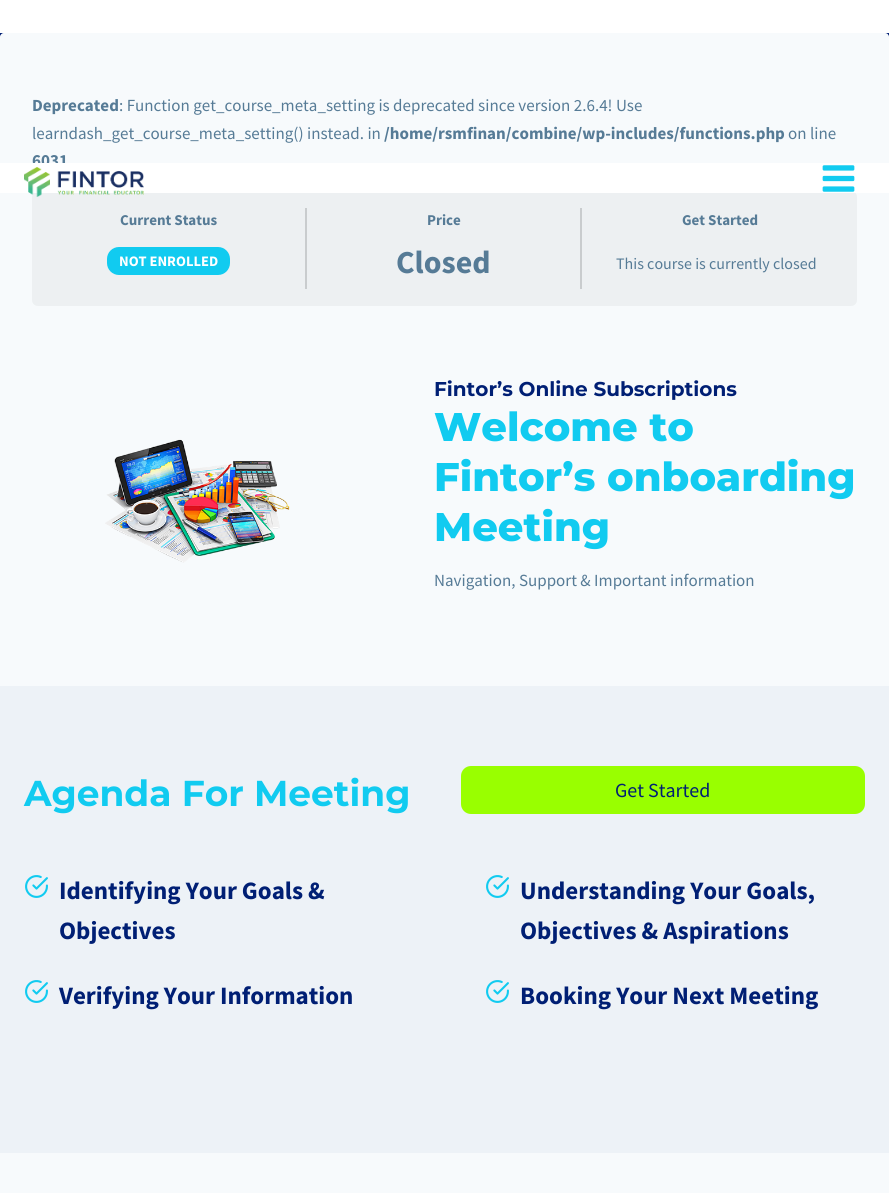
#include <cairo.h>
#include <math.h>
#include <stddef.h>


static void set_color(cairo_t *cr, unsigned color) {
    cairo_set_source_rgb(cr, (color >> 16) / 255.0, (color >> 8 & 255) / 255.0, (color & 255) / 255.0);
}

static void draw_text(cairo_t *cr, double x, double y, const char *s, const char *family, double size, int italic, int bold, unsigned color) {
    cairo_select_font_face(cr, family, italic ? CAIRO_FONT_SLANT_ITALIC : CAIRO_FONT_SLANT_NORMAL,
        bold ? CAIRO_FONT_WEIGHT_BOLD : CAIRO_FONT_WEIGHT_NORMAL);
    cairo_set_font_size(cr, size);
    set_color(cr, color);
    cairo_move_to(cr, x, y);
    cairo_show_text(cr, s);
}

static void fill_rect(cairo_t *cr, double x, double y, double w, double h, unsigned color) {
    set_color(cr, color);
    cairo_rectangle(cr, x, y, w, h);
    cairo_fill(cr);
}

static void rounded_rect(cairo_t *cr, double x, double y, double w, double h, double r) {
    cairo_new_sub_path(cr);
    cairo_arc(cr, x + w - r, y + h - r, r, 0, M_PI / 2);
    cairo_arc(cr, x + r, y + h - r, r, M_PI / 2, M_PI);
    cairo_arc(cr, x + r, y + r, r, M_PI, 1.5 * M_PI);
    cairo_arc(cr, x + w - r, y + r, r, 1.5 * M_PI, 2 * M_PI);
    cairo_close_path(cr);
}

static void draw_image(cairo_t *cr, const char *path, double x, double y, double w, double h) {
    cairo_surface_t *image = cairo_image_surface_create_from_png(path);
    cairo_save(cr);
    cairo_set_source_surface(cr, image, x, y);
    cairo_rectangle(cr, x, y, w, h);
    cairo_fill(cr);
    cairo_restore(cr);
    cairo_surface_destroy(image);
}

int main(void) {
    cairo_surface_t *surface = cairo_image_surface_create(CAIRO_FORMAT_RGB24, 889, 1193);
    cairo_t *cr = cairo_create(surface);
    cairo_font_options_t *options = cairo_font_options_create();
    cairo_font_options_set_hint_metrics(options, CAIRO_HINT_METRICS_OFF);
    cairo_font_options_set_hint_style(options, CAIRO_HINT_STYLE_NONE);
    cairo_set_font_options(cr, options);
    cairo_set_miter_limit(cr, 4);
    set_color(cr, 0x001F74);
    cairo_paint(cr);
    fill_rect(cr, 0, 0, 889, 33, 0xFFFFFF);
    set_color(cr, 0xF7FAFC);
    rounded_rect(cr, 0, 33, 889, 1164, 4);
    cairo_fill(cr);
    draw_text(cr, 32, 166, "6031", "Source Sans Pro", 17, 0, 1, 0x567B96);
    set_color(cr, 0xEDF0F2);
    rounded_rect(cr, 32, 191, 825, 115, 6);
    cairo_fill(cr);
    fill_rect(cr, 0, 163, 889, 30, 0xFFFFFF);
    draw_image(cr, "assets/img1.png", 24, 167, 120, 30);
    draw_image(cr, "assets/img2.png", 822, 165, 33, 27);
    draw_text(cr, 32, 111, "Deprecated", "Source Sans Pro", 17, 0, 1, 0x567B96);
    draw_text(cr, 119, 111, ": Function get_course_meta_setting is deprecated since version 2.6.4! Use", "Source Sans Pro", 17, 0, 0, 0x567B96);
    draw_text(cr, 32, 139, "learndash_get_course_meta_setting() instead. in", "Source Sans Pro", 17, 0, 0, 0x567B96);
    draw_text(cr, 384, 139, "/home/rsmfinan/combine/wp-includes/functions.php", "Source Sans Pro", 17, 0, 1, 0x567B96);
    draw_text(cr, 788, 139, "on line", "Source Sans Pro", 17, 0, 0, 0x567B96);
    fill_rect(cr, 305, 208, 2, 81, 0xC9CCCE);
    draw_text(cr, 120, 225, "Current Status", "Source Sans Pro", 15, 0, 1, 0x567B96);
    set_color(cr, 0x11CBF0);
    rounded_rect(cr, 107, 247, 123, 28, 12);
    cairo_fill(cr);
    draw_text(cr, 119, 266, "NOT ENROLLED", "Source Sans Pro", 14.5, 0, 1, 0xFFFFFF);
    fill_rect(cr, 580, 208, 2, 81, 0xC9CCCE);
    draw_text(cr, 427, 225, "Price", "Source Sans Pro", 15, 0, 1, 0x567B96);
    draw_text(cr, 396, 273, "Closed", "Source Sans Pro", 32, 0, 1, 0x567B96);
    draw_text(cr, 682, 225, "Get Started", "Source Sans Pro", 15, 0, 1, 0x567B96);
    draw_text(cr, 616, 269, "This course is currently closed", "Source Sans Pro", 16, 0, 0, 0x567B96);
    draw_image(cr, "assets/img3.png", 105, 439, 185, 124);
    draw_text(cr, 434, 396, "Fintor’s Online Subscriptions", "Montserrat", 20, 0, 1, 0x001F74);
    draw_text(cr, 434, 441, "Welcome to", "Montserrat ExtraBold", 40, 0, 0, 0x11CBF0);
    draw_text(cr, 434, 491, "Fintor’s onboarding", "Montserrat ExtraBold", 40, 0, 0, 0x11CBF0);
    draw_text(cr, 434, 541, "Meeting", "Montserrat ExtraBold", 40, 0, 0, 0x11CBF0);
    draw_text(cr, 434, 586, "Navigation, Support & Important information", "Source Sans Pro", 17, 0, 0, 0x567B96);
    fill_rect(cr, 0, 686, 889, 467, 0xEDF2F7);
    draw_text(cr, 24, 806, "Agenda For Meeting", "Montserrat", 36, 0, 1, 0x11CBF0);
    set_color(cr, 0x99FF00);
    rounded_rect(cr, 461, 766, 404, 48, 10);
    cairo_fill(cr);
    draw_text(cr, 615, 797, "Get Started", "Source Sans Pro", 20, 0, 0, 0x001F74);
    draw_image(cr, "assets/img4.png", 25, 875, 23, 23);
    draw_text(cr, 59, 899, "Identifying Your Goals &", "Source Sans Pro", 25, 0, 1, 0x001F74);
    draw_text(cr, 59, 939, "Objectives", "Source Sans Pro", 25, 0, 1, 0x001F74);
    draw_image(cr, "assets/img4.png", 25, 980, 23, 23);
    draw_text(cr, 59, 1004, "Verifying Your Information", "Source Sans Pro", 25, 0, 1, 0x001F74);
    draw_image(cr, "assets/img4.png", 486, 875, 23, 23);
    draw_text(cr, 520, 899, "Understanding Your Goals,", "Source Sans Pro", 25, 0, 1, 0x001F74);
    draw_text(cr, 520, 939, "Objectives & Aspirations", "Source Sans Pro", 25, 0, 1, 0x001F74);
    draw_image(cr, "assets/img4.png", 486, 980, 23, 23);
    draw_text(cr, 520, 1004, "Booking Your Next Meeting", "Source Sans Pro", 25, 0, 1, 0x001F74);
    cairo_surface_write_to_png(surface, "output.png");
    cairo_font_options_destroy(options);
    cairo_destroy(cr);
    cairo_surface_destroy(surface);
    return 0;
}
